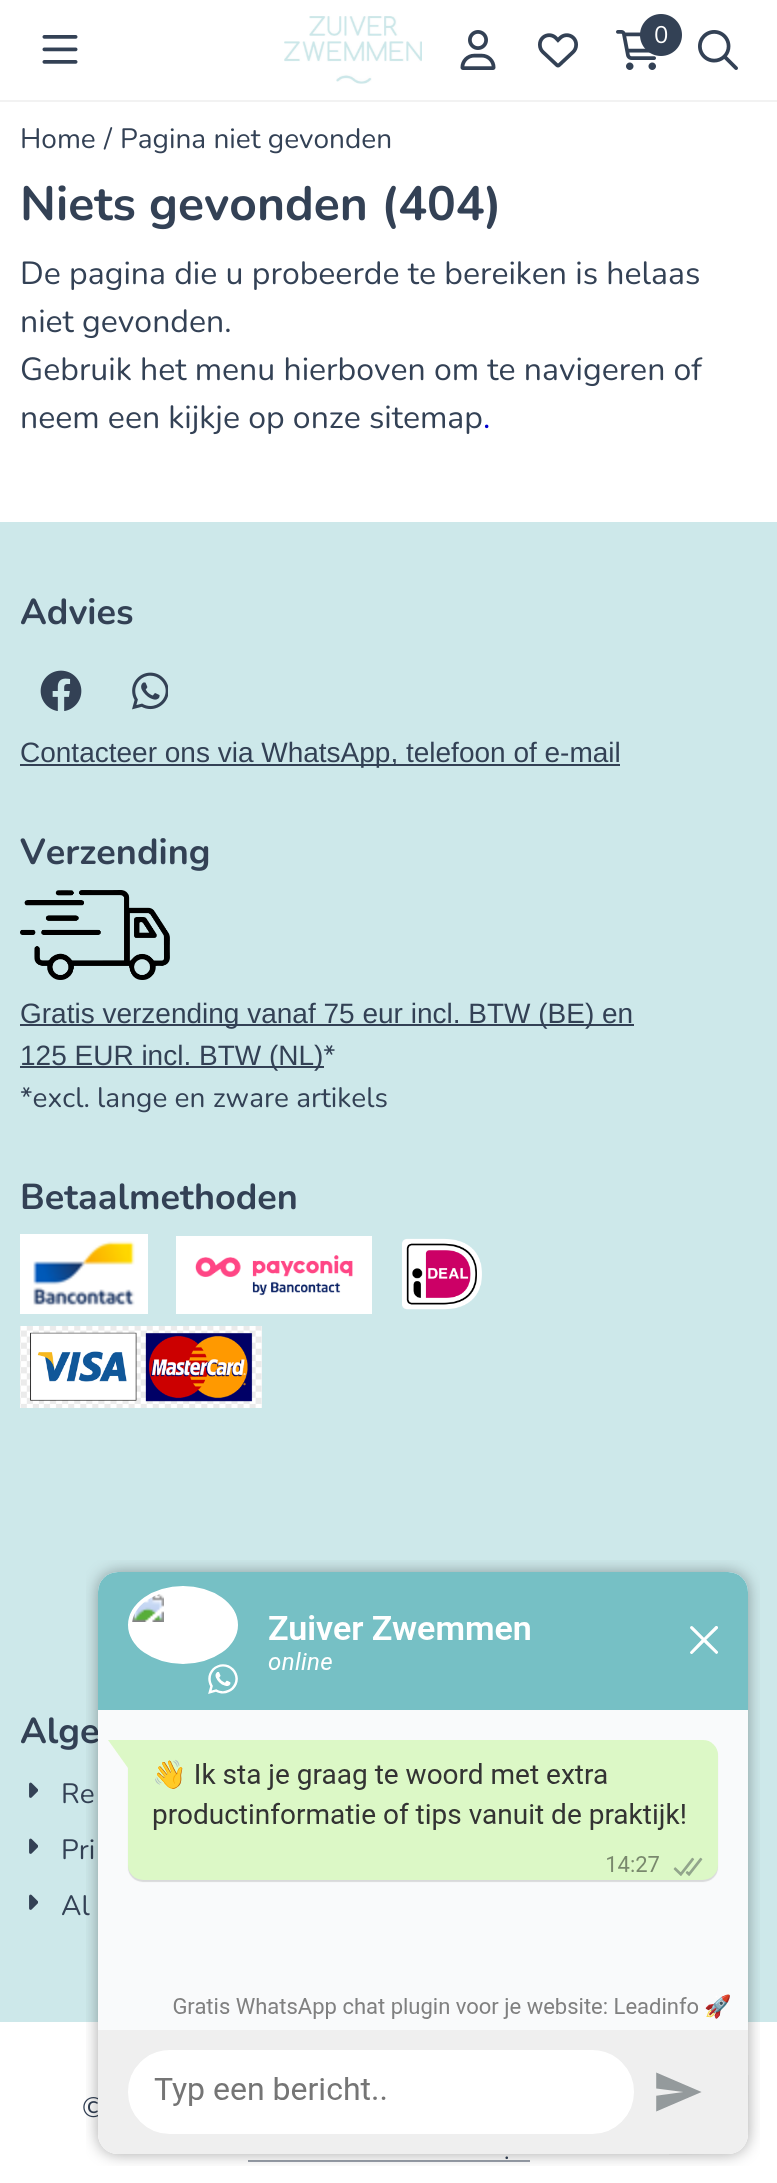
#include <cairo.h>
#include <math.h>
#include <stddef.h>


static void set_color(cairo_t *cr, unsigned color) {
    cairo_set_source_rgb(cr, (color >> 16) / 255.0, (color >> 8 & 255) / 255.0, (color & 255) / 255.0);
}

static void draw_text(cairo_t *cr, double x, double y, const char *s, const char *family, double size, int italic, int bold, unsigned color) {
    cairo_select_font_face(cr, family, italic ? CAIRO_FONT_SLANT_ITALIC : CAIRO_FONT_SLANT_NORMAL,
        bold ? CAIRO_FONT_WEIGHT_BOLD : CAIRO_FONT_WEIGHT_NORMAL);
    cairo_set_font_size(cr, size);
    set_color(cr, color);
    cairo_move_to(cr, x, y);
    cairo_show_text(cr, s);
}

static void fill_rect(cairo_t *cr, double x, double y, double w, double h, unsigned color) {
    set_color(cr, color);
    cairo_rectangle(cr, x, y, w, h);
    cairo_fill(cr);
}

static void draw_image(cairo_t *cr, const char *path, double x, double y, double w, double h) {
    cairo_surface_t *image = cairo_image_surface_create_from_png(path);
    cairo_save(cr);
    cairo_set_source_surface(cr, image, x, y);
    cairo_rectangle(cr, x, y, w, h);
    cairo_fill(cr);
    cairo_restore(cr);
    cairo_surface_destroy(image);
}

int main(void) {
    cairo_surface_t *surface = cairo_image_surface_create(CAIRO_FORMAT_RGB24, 777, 2183);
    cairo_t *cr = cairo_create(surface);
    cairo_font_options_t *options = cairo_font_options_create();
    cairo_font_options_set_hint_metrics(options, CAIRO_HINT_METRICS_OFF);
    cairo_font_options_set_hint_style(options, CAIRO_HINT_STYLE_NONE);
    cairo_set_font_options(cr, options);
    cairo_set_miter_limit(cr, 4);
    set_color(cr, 0xFFFFFF);
    cairo_paint(cr);
    fill_rect(cr, 0, 100, 777, 2, 0xF2F2F2);
    draw_image(cr, "assets/img1.png", 42, 35, 36, 29);
    draw_image(cr, "assets/img2.png", 284, 16, 138, 68);
    draw_image(cr, "assets/img3.png", 460, 30, 36, 40);
    draw_image(cr, "assets/img4.png", 538, 33, 40, 35);
    draw_image(cr, "assets/img5.png", 616, 30, 40, 40);
    set_color(cr, 0x334155);
    cairo_arc(cr, 661, 35, 21, 0, 2 * M_PI);
    cairo_fill(cr);
    draw_text(cr, 654, 43, "0", "Nunito ExtraLight", 24, 0, 0, 0xFFFFFF);
    draw_image(cr, "assets/img6.png", 698, 30, 40, 40);
    draw_text(cr, 20, 148, "Home", "Nunito ExtraLight", 28, 0, 0, 0x334155);
    draw_text(cr, 104, 148, "/", "Nunito ExtraLight", 28, 0, 0, 0x334155);
    draw_text(cr, 120, 148, "Pagina niet gevonden", "Nunito ExtraLight", 28, 0, 0, 0x334155);
    draw_text(cr, 20, 220, "Niets gevonden (404)", "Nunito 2 ExtraLight", 48, 0, 0, 0x334155);
    draw_text(cr, 20, 284, "De pagina die u probeerde te bereiken is helaas", "Nunito ExtraLight", 32, 0, 0, 0x334155);
    draw_text(cr, 20, 332, "niet gevonden.", "Nunito ExtraLight", 32, 0, 0, 0x334155);
    draw_text(cr, 20, 380, "Gebruik het menu hierboven om te navigeren of", "Nunito ExtraLight", 32, 0, 0, 0x334155);
    draw_text(cr, 20, 428, "neem een kijkje op onze sitemap", "Nunito ExtraLight", 32, 0, 0, 0x334155);
    draw_text(cr, 483, 428, ".", "Nunito ExtraLight", 32, 0, 0, 0x0000CD);
    fill_rect(cr, 0, 522, 777, 1500, 0xCDE8EA);
    draw_text(cr, 20, 624, "Advies", "Nunito 2 ExtraLight", 36, 0, 0, 0x334155);
    draw_image(cr, "assets/img7.png", 40, 670, 42, 41);
    draw_image(cr, "assets/img8.png", 132, 672, 36, 38);
    fill_rect(cr, 20, 764, 600, 2, 0x334155);
    draw_text(cr, 20, 762, "Contacteer ons via WhatsApp, telefoon of e-mail", "Liberation Sans", 28, 0, 0, 0x334155);
    draw_text(cr, 20, 864, "Verzending", "Nunito 2 ExtraLight", 36, 0, 0, 0x334155);
    draw_image(cr, "assets/img9.png", 20, 890, 150, 90);
    fill_rect(cr, 20, 1024, 614, 2, 0x334155);
    draw_text(cr, 20, 1023, "Gratis verzending vanaf 75 eur incl. BTW (BE) en", "Liberation Sans", 28, 0, 0, 0x334155);
    fill_rect(cr, 20, 1066, 304, 2, 0x334155);
    draw_text(cr, 20, 1065, "125 EUR incl. BTW (NL)", "Liberation Sans", 28, 0, 0, 0x334155);
    draw_text(cr, 323, 1065, "*", "Nunito ExtraLight", 28, 0, 0, 0x334155);
    draw_text(cr, 20, 1107, "*excl. lange en zware artikels", "Nunito ExtraLight", 28, 0, 0, 0x334155);
    draw_text(cr, 20, 1209, "Betaalmethoden", "Nunito 2 ExtraLight", 36, 0, 0, 0x334155);
    draw_image(cr, "assets/img10.png", 20, 1234, 128, 80);
    draw_image(cr, "assets/img11.png", 176, 1236, 196, 78);
    draw_image(cr, "assets/img12.png", 402, 1238, 80, 72);
    draw_image(cr, "assets/img13.png", 20, 1326, 242, 82);
    draw_text(cr, 20, 1743, "Alge", "Nunito 2 ExtraLight", 36, 0, 0, 0x334155);
    draw_image(cr, "assets/img14.png", 29, 1782, 9, 16);
    draw_text(cr, 61, 1803, "Re", "Nunito ExtraLight", 28, 0, 0, 0x334155);
    draw_image(cr, "assets/img14.png", 29, 1838, 9, 16);
    draw_text(cr, 61, 1859, "Pri", "Nunito ExtraLight", 28, 0, 0, 0x334155);
    draw_image(cr, "assets/img14.png", 29, 1894, 9, 16);
    draw_text(cr, 61, 1915, "Al", "Nunito ExtraLight", 28, 0, 0, 0x334155);
    draw_text(cr, 82, 2117, "©", "Nunito ExtraLight", 28, 0, 0, 0x334155);
    draw_text(cr, 504, 2159, ".", "Nunito ExtraLight", 24, 0, 0, 0x334155);
    fill_rect(cr, 248, 2160, 282, 2, 0x99A0AA);
    draw_image(cr, "assets/img16.png", 669, 2075, 80, 80);
    draw_image(cr, "assets/img15.png", 86, 1560, 674, 606);
    cairo_surface_write_to_png(surface, "output.png");
    cairo_font_options_destroy(options);
    cairo_destroy(cr);
    cairo_surface_destroy(surface);
    return 0;
}
